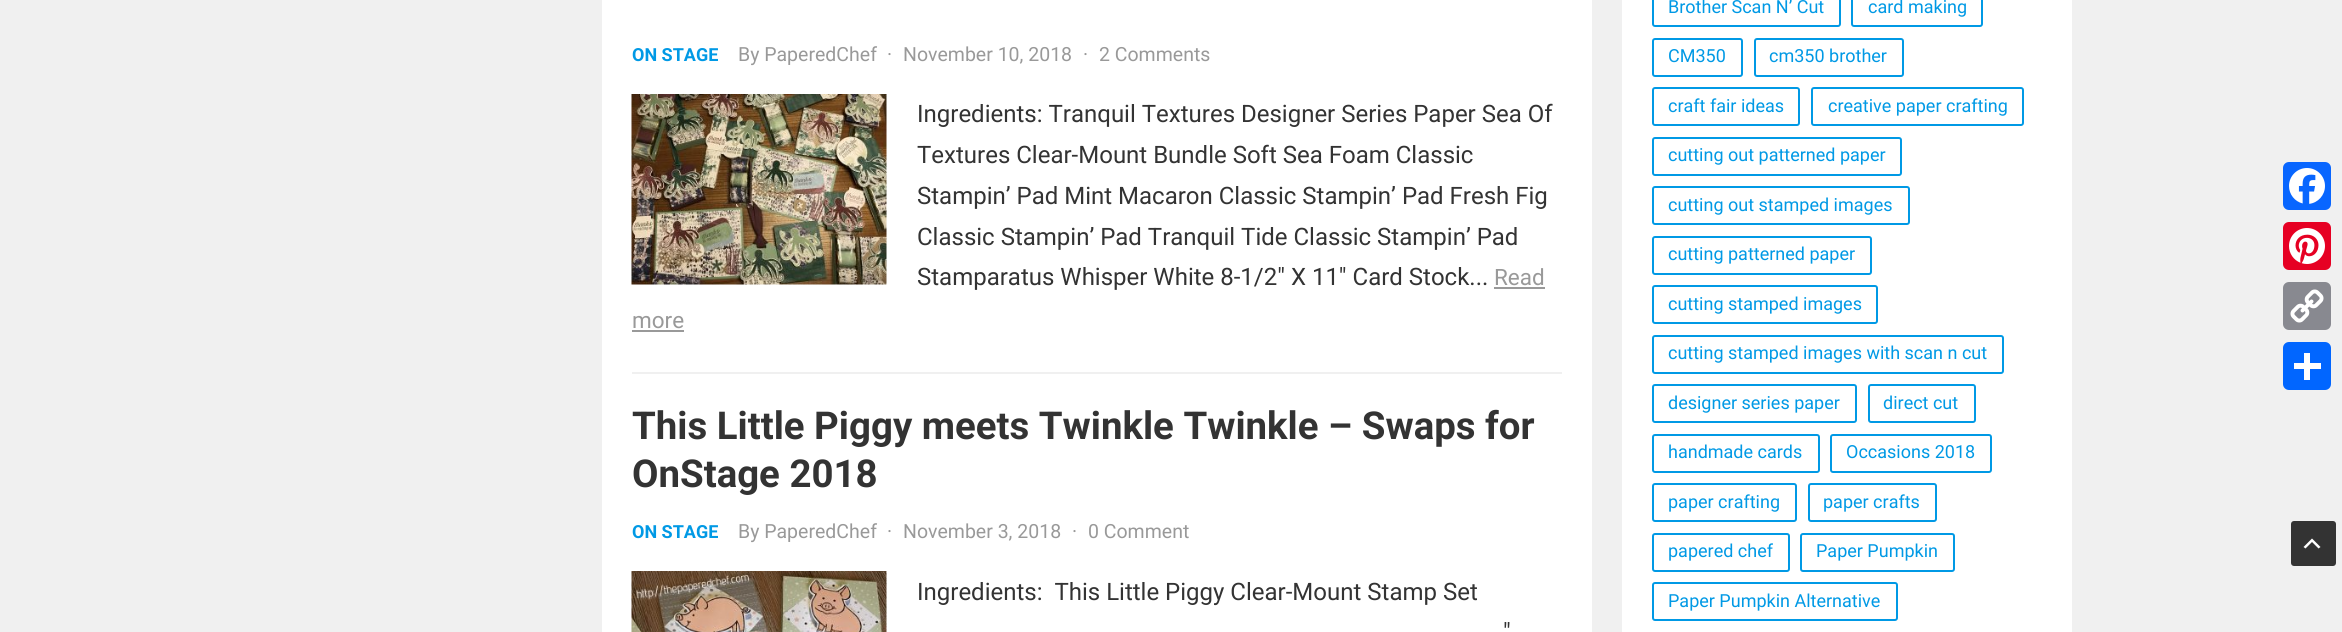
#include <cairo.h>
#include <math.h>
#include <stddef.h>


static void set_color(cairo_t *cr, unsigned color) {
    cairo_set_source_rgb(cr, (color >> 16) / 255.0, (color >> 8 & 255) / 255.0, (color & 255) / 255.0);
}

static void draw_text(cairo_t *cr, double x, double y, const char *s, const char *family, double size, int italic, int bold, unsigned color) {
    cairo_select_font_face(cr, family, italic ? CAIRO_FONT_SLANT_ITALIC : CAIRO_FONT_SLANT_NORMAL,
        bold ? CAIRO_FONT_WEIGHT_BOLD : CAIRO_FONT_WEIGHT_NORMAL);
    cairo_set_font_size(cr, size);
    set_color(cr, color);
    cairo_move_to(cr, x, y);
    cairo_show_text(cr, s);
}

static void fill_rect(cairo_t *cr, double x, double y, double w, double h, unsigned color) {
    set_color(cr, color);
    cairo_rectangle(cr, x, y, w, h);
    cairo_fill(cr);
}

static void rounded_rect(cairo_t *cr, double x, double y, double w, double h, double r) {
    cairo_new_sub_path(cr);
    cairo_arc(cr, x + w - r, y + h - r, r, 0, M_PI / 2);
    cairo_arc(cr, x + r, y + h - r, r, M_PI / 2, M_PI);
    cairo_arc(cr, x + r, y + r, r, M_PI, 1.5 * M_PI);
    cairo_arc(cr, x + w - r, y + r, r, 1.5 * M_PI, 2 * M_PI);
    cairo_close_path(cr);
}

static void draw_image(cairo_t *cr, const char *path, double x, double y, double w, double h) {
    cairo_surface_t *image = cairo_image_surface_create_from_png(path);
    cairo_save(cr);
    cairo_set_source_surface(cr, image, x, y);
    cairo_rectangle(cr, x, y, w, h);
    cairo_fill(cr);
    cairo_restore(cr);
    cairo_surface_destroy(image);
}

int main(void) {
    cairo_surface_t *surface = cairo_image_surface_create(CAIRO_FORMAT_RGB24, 2342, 632);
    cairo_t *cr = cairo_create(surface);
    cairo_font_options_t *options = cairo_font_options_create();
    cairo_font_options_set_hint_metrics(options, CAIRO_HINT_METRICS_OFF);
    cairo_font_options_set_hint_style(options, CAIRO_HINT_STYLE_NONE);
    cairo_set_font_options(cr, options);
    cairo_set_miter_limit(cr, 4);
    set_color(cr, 0xF0F0F0);
    cairo_paint(cr);
    fill_rect(cr, 602, 0, 990, 632, 0xFFFFFF);
    fill_rect(cr, 632, 372, 930, 2, 0xF0F0F0);
    draw_text(cr, 632, 61, "ON STAGE", "Roboto", 18, 0, 1, 0x0099E5);
    draw_text(cr, 738, 61, "By PaperedChef", "Roboto", 19.5, 0, 0, 0x999999);
    draw_text(cr, 887, 61, "·", "Roboto", 19.5, 0, 0, 0x999999);
    draw_text(cr, 903, 61, "November 10, 2018", "Roboto", 19.5, 0, 0, 0x999999);
    draw_text(cr, 1083, 61, "·", "Roboto", 19.5, 0, 0, 0x999999);
    draw_text(cr, 1099, 61, "2 Comments", "Roboto", 19.5, 0, 0, 0x999999);
    draw_image(cr, "assets/img1.png", 631, 94, 256, 191);
    draw_text(cr, 917, 122, "Ingredients: Tranquil Textures Designer Series Paper Sea Of", "Roboto", 24, 0, 0, 0x333333);
    draw_text(cr, 917, 163, "Textures Clear-Mount Bundle Soft Sea Foam Classic", "Roboto", 24, 0, 0, 0x333333);
    draw_text(cr, 917, 204, "Stampin’ Pad Mint Macaron Classic Stampin’ Pad Fresh Fig", "Roboto", 24, 0, 0, 0x333333);
    draw_text(cr, 917, 245, "Classic Stampin’ Pad Tranquil Tide Classic Stampin’ Pad", "Roboto", 24, 0, 0, 0x333333);
    draw_text(cr, 917, 285, "Stamparatus Whisper White 8-1/2″ X 11″ Card Stock...", "Roboto", 24, 0, 0, 0x333333);
    draw_text(cr, 1494, 285, "Read", "Roboto", 22.5, 0, 0, 0x999999);
    fill_rect(cr, 1494, 287, 51, 2, 0x999999);
    draw_text(cr, 632, 328, "more", "Roboto", 22.5, 0, 0, 0x999999);
    fill_rect(cr, 632, 330, 52, 2, 0x999999);
    draw_text(cr, 632, 439, "This Little Piggy meets Twinkle Twinkle – Swaps for", "Roboto", 38.4, 0, 1, 0x333333);
    draw_text(cr, 632, 487, "OnStage 2018", "Roboto", 38.4, 0, 1, 0x333333);
    draw_text(cr, 632, 538, "ON STAGE", "Roboto", 18, 0, 1, 0x0099E5);
    draw_text(cr, 738, 538, "By PaperedChef", "Roboto", 19.5, 0, 0, 0x999999);
    draw_text(cr, 887, 538, "·", "Roboto", 19.5, 0, 0, 0x999999);
    draw_text(cr, 903, 538, "November 3, 2018", "Roboto", 19.5, 0, 0, 0x999999);
    draw_text(cr, 1072, 538, "·", "Roboto", 19.5, 0, 0, 0x999999);
    draw_text(cr, 1088, 538, "0 Comment", "Roboto", 19.5, 0, 0, 0x999999);
    draw_image(cr, "assets/img2.png", 631, 571, 256, 61);
    draw_text(cr, 917, 600, "Ingredients:  This Little Piggy Clear-Mount Stamp Set", "Roboto", 24, 0, 0, 0x333333);
    draw_text(cr, 1503, 640, "″", "Roboto", 24, 0, 0, 0x333333);
    fill_rect(cr, 1622, 0, 450, 632, 0xFFFFFF);
    rounded_rect(cr, 1653, -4, 187, 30, 2);
    set_color(cr, 0x0099E5);
    cairo_stroke(cr);
    draw_text(cr, 1668, 13, "Brother Scan N’ Cut", "Roboto", 18, 0, 0, 0x0099E5);
    rounded_rect(cr, 1852, -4, 130, 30, 2);
    cairo_stroke(cr);
    draw_text(cr, 1868, 13, "card making", "Roboto", 18, 0, 0, 0x0099E5);
    rounded_rect(cr, 1653, 39, 89, 37, 2);
    cairo_stroke(cr);
    draw_text(cr, 1668, 62, "CM350", "Roboto", 18, 0, 0, 0x0099E5);
    rounded_rect(cr, 1755, 39, 148, 37, 2);
    cairo_stroke(cr);
    draw_text(cr, 1769, 62, "cm350 brother", "Roboto", 18, 0, 0, 0x0099E5);
    rounded_rect(cr, 1653, 88, 146, 37, 2);
    cairo_stroke(cr);
    draw_text(cr, 1668, 112, "craft fair ideas", "Roboto", 18, 0, 0, 0x0099E5);
    rounded_rect(cr, 1812, 88, 211, 37, 2);
    cairo_stroke(cr);
    draw_text(cr, 1828, 112, "creative paper crafting", "Roboto", 18, 0, 0, 0x0099E5);
    rounded_rect(cr, 1653, 138, 248, 37, 2);
    cairo_stroke(cr);
    draw_text(cr, 1668, 161, "cutting out patterned paper", "Roboto", 18, 0, 0, 0x0099E5);
    rounded_rect(cr, 1653, 187, 256, 37, 2);
    cairo_stroke(cr);
    draw_text(cr, 1668, 211, "cutting out stamped images", "Roboto", 18, 0, 0, 0x0099E5);
    rounded_rect(cr, 1653, 237, 218, 37, 2);
    cairo_stroke(cr);
    draw_text(cr, 1668, 260, "cutting patterned paper", "Roboto", 18, 0, 0, 0x0099E5);
    rounded_rect(cr, 1653, 286, 224, 37, 2);
    cairo_stroke(cr);
    draw_text(cr, 1668, 310, "cutting stamped images", "Roboto", 18, 0, 0, 0x0099E5);
    rounded_rect(cr, 1653, 336, 350, 37, 2);
    cairo_stroke(cr);
    draw_text(cr, 1668, 359, "cutting stamped images with scan n cut", "Roboto", 18, 0, 0, 0x0099E5);
    rounded_rect(cr, 1653, 385, 203, 37, 2);
    cairo_stroke(cr);
    draw_text(cr, 1668, 409, "designer series paper", "Roboto", 18, 0, 0, 0x0099E5);
    rounded_rect(cr, 1869, 385, 106, 37, 2);
    cairo_stroke(cr);
    draw_text(cr, 1883, 409, "direct cut", "Roboto", 18, 0, 0, 0x0099E5);
    rounded_rect(cr, 1653, 435, 166, 37, 2);
    cairo_stroke(cr);
    draw_text(cr, 1668, 458, "handmade cards", "Roboto", 18, 0, 0, 0x0099E5);
    rounded_rect(cr, 1831, 435, 160, 37, 2);
    cairo_stroke(cr);
    draw_text(cr, 1846, 458, "Occasions 2018", "Roboto", 18, 0, 0, 0x0099E5);
    rounded_rect(cr, 1653, 484, 143, 37, 2);
    cairo_stroke(cr);
    draw_text(cr, 1668, 508, "paper crafting", "Roboto", 18, 0, 0, 0x0099E5);
    rounded_rect(cr, 1809, 484, 127, 37, 2);
    cairo_stroke(cr);
    draw_text(cr, 1823, 508, "paper crafts", "Roboto", 18, 0, 0, 0x0099E5);
    rounded_rect(cr, 1653, 534, 136, 37, 2);
    cairo_stroke(cr);
    draw_text(cr, 1668, 557, "papered chef", "Roboto", 18, 0, 0, 0x0099E5);
    rounded_rect(cr, 1801, 534, 153, 37, 2);
    cairo_stroke(cr);
    draw_text(cr, 1816, 557, "Paper Pumpkin", "Roboto", 18, 0, 0, 0x0099E5);
    rounded_rect(cr, 1653, 583, 244, 37, 2);
    cairo_stroke(cr);
    draw_text(cr, 1668, 607, "Paper Pumpkin Alternative", "Roboto", 18, 0, 0, 0x0099E5);
    set_color(cr, 0x0866FF);
    rounded_rect(cr, 2283, 162, 48, 48, 6);
    cairo_fill(cr);
    draw_image(cr, "assets/img3.png", 2289, 168, 36, 36);
    set_color(cr, 0xE60023);
    rounded_rect(cr, 2283, 222, 48, 48, 6);
    cairo_fill(cr);
    draw_image(cr, "assets/img4.png", 2289, 228, 36, 36);
    set_color(cr, 0x888990);
    rounded_rect(cr, 2283, 282, 48, 48, 6);
    cairo_fill(cr);
    draw_image(cr, "assets/img5.png", 2290, 289, 34, 34);
    set_color(cr, 0x0166FF);
    rounded_rect(cr, 2283, 342, 48, 48, 6);
    cairo_fill(cr);
    fill_rect(cr, 2304, 353, 6, 27, 0xFFFFFF);
    fill_rect(cr, 2294, 363, 27, 6, 0xFFFFFF);
    set_color(cr, 0x333333);
    rounded_rect(cr, 2291, 521, 45, 45, 3);
    cairo_fill(cr);
    set_color(cr, 0xFFFFFF);
    cairo_new_path(cr);
    cairo_move_to(cr, 2318.5, 548.5);
    cairo_line_to(cr, 2312, 542);
    cairo_line_to(cr, 2305.5, 548.5);
    cairo_line_to(cr, 2303.5, 547);
    cairo_line_to(cr, 2312, 538.5);
    cairo_line_to(cr, 2320.5, 547);
    cairo_close_path(cr);
    cairo_fill(cr);
    cairo_surface_write_to_png(surface, "output.png");
    cairo_font_options_destroy(options);
    cairo_destroy(cr);
    cairo_surface_destroy(surface);
    return 0;
}
